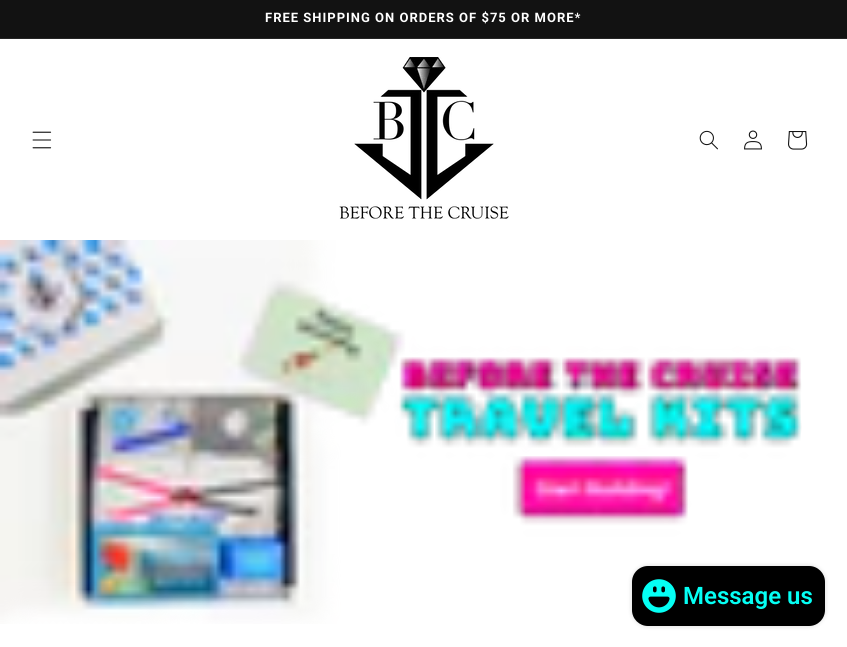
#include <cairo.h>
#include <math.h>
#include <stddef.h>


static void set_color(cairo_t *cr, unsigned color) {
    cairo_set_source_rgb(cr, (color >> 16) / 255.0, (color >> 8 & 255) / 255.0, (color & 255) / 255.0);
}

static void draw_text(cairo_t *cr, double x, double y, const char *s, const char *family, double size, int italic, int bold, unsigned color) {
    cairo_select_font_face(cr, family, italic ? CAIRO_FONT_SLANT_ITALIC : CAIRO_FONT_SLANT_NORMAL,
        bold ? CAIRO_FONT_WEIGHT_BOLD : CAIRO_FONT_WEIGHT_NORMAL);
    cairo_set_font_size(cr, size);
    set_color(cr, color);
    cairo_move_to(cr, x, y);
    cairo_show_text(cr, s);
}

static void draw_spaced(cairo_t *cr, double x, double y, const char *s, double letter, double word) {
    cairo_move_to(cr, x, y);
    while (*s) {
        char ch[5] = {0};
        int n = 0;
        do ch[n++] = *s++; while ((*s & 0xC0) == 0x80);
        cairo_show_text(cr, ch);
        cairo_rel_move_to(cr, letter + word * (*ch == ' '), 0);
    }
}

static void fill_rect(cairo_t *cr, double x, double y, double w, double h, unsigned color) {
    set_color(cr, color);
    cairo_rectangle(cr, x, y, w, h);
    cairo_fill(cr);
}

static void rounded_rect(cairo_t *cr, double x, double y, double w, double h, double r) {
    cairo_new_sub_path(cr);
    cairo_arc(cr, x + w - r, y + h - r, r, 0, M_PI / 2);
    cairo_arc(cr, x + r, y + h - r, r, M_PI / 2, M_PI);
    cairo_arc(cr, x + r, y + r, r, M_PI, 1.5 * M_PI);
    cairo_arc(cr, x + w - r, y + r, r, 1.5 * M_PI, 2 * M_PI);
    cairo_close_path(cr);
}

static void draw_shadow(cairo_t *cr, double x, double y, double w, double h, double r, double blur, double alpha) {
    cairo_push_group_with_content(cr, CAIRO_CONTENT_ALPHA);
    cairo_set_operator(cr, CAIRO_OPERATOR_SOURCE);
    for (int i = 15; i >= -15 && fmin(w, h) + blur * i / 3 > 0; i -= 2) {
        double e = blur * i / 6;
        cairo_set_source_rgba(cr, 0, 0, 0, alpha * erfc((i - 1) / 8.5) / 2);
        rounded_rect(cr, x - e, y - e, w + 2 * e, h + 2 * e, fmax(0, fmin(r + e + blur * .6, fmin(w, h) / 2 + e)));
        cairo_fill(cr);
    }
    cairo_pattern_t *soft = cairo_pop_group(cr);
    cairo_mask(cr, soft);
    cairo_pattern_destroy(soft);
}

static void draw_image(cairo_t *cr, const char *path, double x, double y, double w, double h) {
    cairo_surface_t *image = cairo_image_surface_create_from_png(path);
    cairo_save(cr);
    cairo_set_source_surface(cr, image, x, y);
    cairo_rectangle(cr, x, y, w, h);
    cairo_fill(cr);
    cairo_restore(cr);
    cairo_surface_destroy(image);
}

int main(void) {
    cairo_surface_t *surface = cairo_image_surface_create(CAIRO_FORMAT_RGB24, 847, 647);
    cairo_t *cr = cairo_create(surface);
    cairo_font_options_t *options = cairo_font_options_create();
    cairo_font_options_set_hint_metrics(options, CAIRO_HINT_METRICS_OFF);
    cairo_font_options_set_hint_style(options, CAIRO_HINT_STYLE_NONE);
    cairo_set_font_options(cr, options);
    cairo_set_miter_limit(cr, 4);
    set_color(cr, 0xFFFFFF);
    cairo_paint(cr);
    fill_rect(cr, 0, 0, 847, 38, 0x121212);
    fill_rect(cr, 0, 38, 847, 1, 0x252525);
    cairo_select_font_face(cr, "Roboto", CAIRO_FONT_SLANT_NORMAL, CAIRO_FONT_WEIGHT_BOLD);
    cairo_set_font_size(cr, 13);
    set_color(cr, 0xFFFFFF);
    draw_spaced(cr, 265, 22, "FREE SHIPPING ON ORDERS OF $75 OR MORE*", 1, 0);
    draw_image(cr, "assets/img1.png", 32, 131, 20, 18);
    draw_image(cr, "assets/img2.png", 339, 57, 170, 162);
    draw_image(cr, "assets/img3.png", 699, 130, 19, 20);
    draw_image(cr, "assets/img4.png", 744, 130, 18, 20);
    draw_image(cr, "assets/img5.png", 788, 131, 20, 19);
    draw_image(cr, "assets/img6.png", 0, 240, 802, 384);
    set_color(cr, 0x000000);
    draw_shadow(cr, 632, 566, 193, 60, 16, 2.5, 0.15);
    set_color(cr, 0x000000);
    rounded_rect(cr, 632, 566, 193, 60, 16);
    cairo_fill(cr);
    draw_image(cr, "assets/img7.png", 642, 579, 34, 34);
    draw_text(cr, 683, 604, "Message us", "Roboto SemiBold", 24, 0, 0, 0x05FFF4);
    cairo_surface_write_to_png(surface, "output.png");
    cairo_font_options_destroy(options);
    cairo_destroy(cr);
    cairo_surface_destroy(surface);
    return 0;
}
